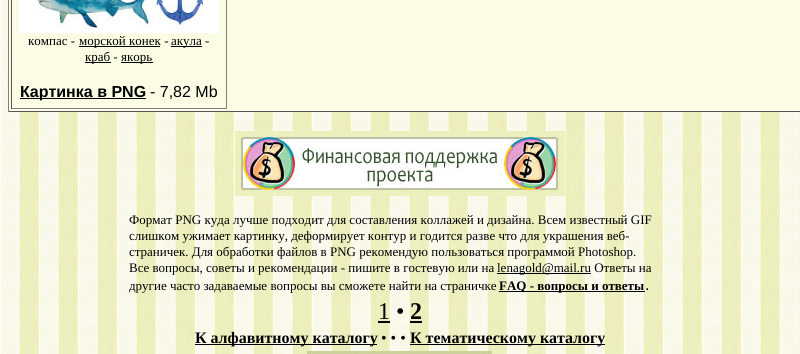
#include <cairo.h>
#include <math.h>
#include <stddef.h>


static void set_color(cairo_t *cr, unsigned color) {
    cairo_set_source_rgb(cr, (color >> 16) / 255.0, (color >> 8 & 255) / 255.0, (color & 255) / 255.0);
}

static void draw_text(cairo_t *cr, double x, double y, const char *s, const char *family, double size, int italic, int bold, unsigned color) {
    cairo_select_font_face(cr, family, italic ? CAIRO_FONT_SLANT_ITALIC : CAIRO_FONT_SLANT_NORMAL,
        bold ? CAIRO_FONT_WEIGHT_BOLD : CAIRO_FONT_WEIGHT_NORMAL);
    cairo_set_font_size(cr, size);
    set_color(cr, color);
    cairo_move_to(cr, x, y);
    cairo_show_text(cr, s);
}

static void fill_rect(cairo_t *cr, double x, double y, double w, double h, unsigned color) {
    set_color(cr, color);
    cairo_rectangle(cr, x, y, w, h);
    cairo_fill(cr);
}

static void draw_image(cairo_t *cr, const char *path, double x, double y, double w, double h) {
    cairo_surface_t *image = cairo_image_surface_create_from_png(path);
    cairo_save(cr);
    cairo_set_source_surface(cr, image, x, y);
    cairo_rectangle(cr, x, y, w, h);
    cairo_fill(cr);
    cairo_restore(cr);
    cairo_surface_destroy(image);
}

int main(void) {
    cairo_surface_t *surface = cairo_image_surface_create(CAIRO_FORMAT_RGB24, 800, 354);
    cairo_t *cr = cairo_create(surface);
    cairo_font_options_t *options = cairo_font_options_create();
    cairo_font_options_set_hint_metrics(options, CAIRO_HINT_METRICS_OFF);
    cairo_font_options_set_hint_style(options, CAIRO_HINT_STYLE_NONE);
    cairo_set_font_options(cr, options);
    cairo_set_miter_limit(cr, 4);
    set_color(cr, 0xFFFFFF);
    cairo_paint(cr);
    draw_image(cr, "assets/img1.png", 0, 0, 800, 354);
    fill_rect(cr, 9, 0, 791, 111, 0xFAFDE4);
    fill_rect(cr, 8, 111, 792, 1, 0x555555);
    fill_rect(cr, 8, 0, 1, 112, 0x808080);
    fill_rect(cr, 226, 0, 1, 109, 0x808080);
    fill_rect(cr, 11, 108, 216, 1, 0x808080);
    fill_rect(cr, 11, 0, 1, 109, 0x555555);
    draw_image(cr, "assets/img2.png", 19, 0, 200, 33);
    draw_text(cr, 28, 45, "компас -", "Liberation Serif", 13, 0, 0, 0x000000);
    fill_rect(cr, 79, 46, 81, 1, 0x000000);
    draw_text(cr, 79, 45, "морской конек -", "Liberation Serif", 13, 0, 0, 0x000000);
    fill_rect(cr, 171, 46, 31, 1, 0x000000);
    draw_text(cr, 171, 45, "акула -", "Liberation Serif", 13, 0, 0, 0x000000);
    fill_rect(cr, 85, 62, 26, 1, 0x000000);
    draw_text(cr, 85, 61, "краб -", "Liberation Serif", 13, 0, 0, 0x000000);
    fill_rect(cr, 121, 62, 32, 1, 0x000000);
    draw_text(cr, 121, 61, "якорь", "Liberation Serif", 13, 0, 0, 0x000000);
    fill_rect(cr, 20, 98, 126, 1, 0x000000);
    draw_text(cr, 20, 97, "Картинка в PNG", "Liberation Sans", 16, 0, 1, 0x000000);
    draw_text(cr, 150, 97, "- 7,82 Mb", "Liberation Sans", 16, 0, 0, 0x000000);
    draw_image(cr, "assets/img3.png", 235, 131, 330, 65);
    draw_text(cr, 129, 224, "Формат PNG куда лучше подходит для составления коллажей и дизайна. Всем известный GIF", "Liberation Serif", 13, 0, 0, 0x000000);
    draw_text(cr, 129, 240, "слишком ужимает картинку, деформирует контур и годится разве что для украшения веб-", "Liberation Serif", 13, 0, 0, 0x000000);
    draw_text(cr, 129, 256, "страничек. Для обработки файлов в PNG рекомендую пользоваться программой Photoshop.", "Liberation Serif", 13, 0, 0, 0x000000);
    draw_text(cr, 129, 272, "Все вопросы, советы и рекомендации - пишите в гостевую или на", "Liberation Serif", 13, 0, 0, 0x000000);
    fill_rect(cr, 497, 273, 94, 1, 0x000000);
    draw_text(cr, 497, 272, "lenagold@mail.ru Ответы на", "Liberation Serif", 13, 0, 0, 0x000000);
    draw_text(cr, 129, 290, "другие часто задаваемые вопросы вы сможете найти на страничке", "Liberation Serif", 13, 0, 0, 0x000000);
    fill_rect(cr, 499, 291, 146, 1, 0x000000);
    draw_text(cr, 499, 290, "FAQ - вопросы и ответы", "Liberation Serif", 13, 0, 1, 0x000000);
    draw_text(cr, 645, 290, ".", "Liberation Sans", 16, 0, 0, 0x000000);
    draw_text(cr, 378, 319, "1 •", "Liberation Serif", 24, 0, 0, 0x000000);
    fill_rect(cr, 378, 321, 12, 2, 0x000000);
    draw_text(cr, 410, 319, "2", "Liberation Serif", 24, 0, 1, 0x000000);
    fill_rect(cr, 410, 321, 12, 2, 0x000000);
    fill_rect(cr, 195, 344, 182, 1, 0x000000);
    draw_text(cr, 195, 343, "К алфавитному каталогу", "Liberation Serif", 16, 0, 1, 0x000000);
    draw_text(cr, 381, 343, "• • •", "Liberation Serif", 16, 0, 0, 0x000000);
    fill_rect(cr, 410, 344, 195, 1, 0x000000);
    draw_text(cr, 410, 343, "К тематическому каталогу", "Liberation Serif", 16, 0, 1, 0x000000);
    draw_image(cr, "assets/img4.png", 307, 351, 185, 3);
    cairo_surface_write_to_png(surface, "output.png");
    cairo_font_options_destroy(options);
    cairo_destroy(cr);
    cairo_surface_destroy(surface);
    return 0;
}
